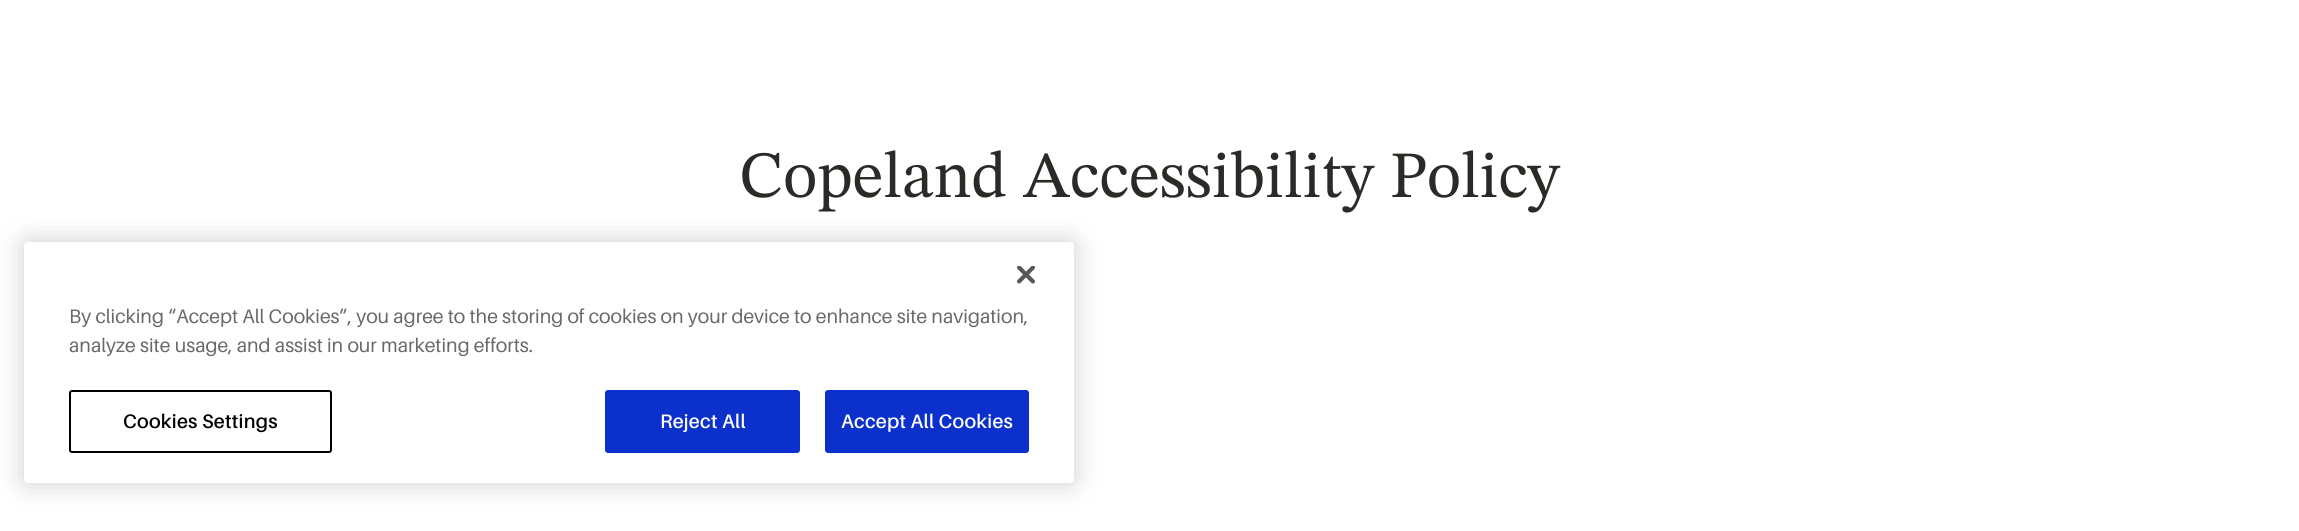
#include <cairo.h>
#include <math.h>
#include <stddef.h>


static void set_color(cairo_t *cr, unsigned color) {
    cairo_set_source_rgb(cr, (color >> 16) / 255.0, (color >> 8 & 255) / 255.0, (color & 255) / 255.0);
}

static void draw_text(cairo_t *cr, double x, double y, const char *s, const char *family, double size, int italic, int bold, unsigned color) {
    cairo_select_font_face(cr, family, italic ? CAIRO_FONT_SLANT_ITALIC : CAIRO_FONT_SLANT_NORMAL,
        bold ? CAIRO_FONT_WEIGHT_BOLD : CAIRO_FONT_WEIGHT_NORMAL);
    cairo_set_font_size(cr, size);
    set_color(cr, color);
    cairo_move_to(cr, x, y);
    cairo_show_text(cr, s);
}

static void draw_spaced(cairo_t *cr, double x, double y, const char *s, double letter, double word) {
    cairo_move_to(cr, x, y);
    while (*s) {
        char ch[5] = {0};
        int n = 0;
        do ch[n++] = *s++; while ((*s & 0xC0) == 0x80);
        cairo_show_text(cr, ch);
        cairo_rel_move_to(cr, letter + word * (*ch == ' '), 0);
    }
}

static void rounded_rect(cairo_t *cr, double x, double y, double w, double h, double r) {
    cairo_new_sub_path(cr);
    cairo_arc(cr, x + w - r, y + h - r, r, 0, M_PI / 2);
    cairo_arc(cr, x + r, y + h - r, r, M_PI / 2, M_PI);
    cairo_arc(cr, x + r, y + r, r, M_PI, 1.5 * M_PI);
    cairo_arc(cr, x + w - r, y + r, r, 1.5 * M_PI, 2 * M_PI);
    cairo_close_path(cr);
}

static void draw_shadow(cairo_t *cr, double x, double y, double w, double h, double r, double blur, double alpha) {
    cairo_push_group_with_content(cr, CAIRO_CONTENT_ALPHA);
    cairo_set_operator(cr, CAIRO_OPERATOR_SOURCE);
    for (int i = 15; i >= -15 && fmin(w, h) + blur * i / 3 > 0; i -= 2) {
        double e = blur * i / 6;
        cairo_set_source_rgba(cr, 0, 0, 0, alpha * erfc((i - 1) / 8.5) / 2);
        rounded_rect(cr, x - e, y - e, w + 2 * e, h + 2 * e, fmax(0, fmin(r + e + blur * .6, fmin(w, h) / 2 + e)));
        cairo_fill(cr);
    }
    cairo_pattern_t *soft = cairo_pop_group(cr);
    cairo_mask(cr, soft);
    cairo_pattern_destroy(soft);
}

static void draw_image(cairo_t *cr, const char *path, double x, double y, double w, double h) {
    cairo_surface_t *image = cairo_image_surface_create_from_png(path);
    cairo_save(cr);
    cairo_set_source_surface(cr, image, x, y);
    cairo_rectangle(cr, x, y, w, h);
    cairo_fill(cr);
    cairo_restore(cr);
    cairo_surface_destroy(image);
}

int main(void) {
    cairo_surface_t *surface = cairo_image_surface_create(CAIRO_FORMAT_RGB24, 2299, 531);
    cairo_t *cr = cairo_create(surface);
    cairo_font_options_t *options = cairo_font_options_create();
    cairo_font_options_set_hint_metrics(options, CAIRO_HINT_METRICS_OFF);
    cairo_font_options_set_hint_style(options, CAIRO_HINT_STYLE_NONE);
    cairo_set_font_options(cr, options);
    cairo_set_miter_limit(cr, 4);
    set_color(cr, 0xFFFFFF);
    cairo_paint(cr);
    draw_text(cr, 739, 197, "Copeland Accessibility Policy", "STIX Two Text", 66, 0, 0, 0x2A2A26);
    set_color(cr, 0x000000);
    draw_shadow(cr, 24, 242, 1050, 241, 4, 13.5, 0.2);
    set_color(cr, 0xFFFFFF);
    rounded_rect(cr, 24, 242, 1050, 241, 4);
    cairo_fill(cr);
    draw_image(cr, "assets/img1.png", 1017, 266, 18, 18);
    draw_text(cr, 69, 323, "By clicking “Accept All Cookies”, you agree to the storing of cookies on your device to enhance site navigation,", "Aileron", 19.5, 0, 0, 0x696969);
    draw_text(cr, 69, 352, "analyze site usage, and assist in our marketing efforts.", "Aileron", 19.5, 0, 0, 0x696969);
    rounded_rect(cr, 70, 391, 261, 61, 2);
    set_color(cr, 0x000000);
    cairo_stroke(cr);
    cairo_select_font_face(cr, "Aileron SemiBold", CAIRO_FONT_SLANT_NORMAL, CAIRO_FONT_WEIGHT_NORMAL);
    draw_spaced(cr, 123, 428, "Cookies Settings", 0.25, 0);
    set_color(cr, 0x0C30CC);
    rounded_rect(cr, 606, 391, 193, 61, 2);
    cairo_fill_preserve(cr);
    cairo_stroke(cr);
    set_color(cr, 0xFFFFFF);
    draw_spaced(cr, 660, 428, "Reject All", 0.25, 0);
    set_color(cr, 0x0C30CC);
    rounded_rect(cr, 826, 391, 202, 61, 2);
    cairo_fill_preserve(cr);
    cairo_stroke(cr);
    set_color(cr, 0xFFFFFF);
    draw_spaced(cr, 841, 428, "Accept All Cookies", 0.25, 0);
    cairo_surface_write_to_png(surface, "output.png");
    cairo_font_options_destroy(options);
    cairo_destroy(cr);
    cairo_surface_destroy(surface);
    return 0;
}
